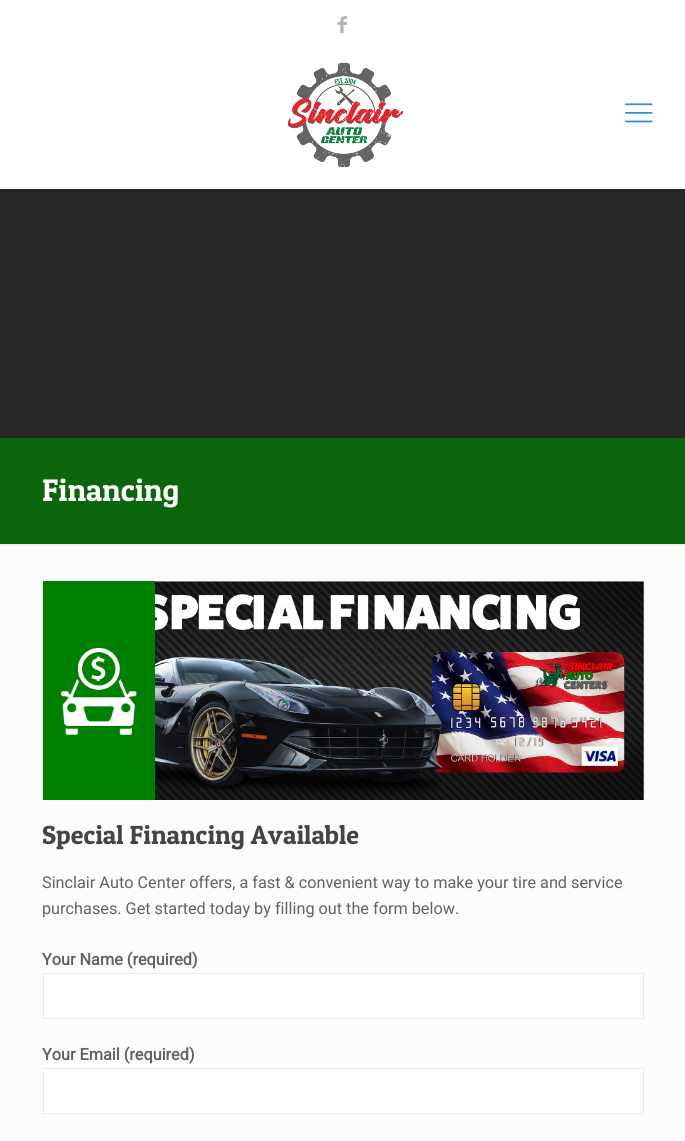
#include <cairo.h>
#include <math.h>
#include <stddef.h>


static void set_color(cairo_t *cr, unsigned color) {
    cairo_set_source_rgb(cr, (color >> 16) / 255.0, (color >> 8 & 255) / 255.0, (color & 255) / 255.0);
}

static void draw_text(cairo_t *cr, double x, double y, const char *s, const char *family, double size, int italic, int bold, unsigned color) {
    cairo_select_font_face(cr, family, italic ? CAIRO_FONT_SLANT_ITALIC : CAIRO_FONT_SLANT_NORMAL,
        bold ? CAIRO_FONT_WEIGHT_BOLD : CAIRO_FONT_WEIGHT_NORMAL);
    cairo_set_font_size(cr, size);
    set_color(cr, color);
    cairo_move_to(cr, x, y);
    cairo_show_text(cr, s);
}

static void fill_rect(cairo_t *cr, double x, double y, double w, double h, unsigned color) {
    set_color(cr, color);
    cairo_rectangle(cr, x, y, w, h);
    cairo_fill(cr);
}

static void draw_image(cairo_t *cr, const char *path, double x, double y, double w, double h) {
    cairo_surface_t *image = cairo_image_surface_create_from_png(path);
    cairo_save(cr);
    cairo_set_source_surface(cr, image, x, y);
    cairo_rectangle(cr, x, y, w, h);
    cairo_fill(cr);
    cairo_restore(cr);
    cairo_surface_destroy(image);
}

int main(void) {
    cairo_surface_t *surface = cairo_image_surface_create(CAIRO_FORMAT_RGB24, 685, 1141);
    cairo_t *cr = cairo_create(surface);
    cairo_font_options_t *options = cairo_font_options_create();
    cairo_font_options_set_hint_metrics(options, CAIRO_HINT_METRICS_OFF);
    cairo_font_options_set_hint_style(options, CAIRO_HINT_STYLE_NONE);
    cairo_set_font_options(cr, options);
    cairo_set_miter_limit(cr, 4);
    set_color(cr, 0xFCFCFC);
    cairo_paint(cr);
    fill_rect(cr, 0, 189, 685, 249, 0x262626);
    fill_rect(cr, 0, 0, 685, 189, 0xFFFFFF);
    draw_image(cr, "assets/img1.png", 337, 16, 10, 18);
    draw_image(cr, "assets/img2.png", 287, 62, 117, 106);
    draw_image(cr, "assets/img3.png", 625, 103, 28, 20);
    fill_rect(cr, 0, 438, 685, 106, 0x0B650B);
    draw_text(cr, 42, 501, "Financing", "Patua One", 31.25, 0, 0, 0xFFFFFF);
    draw_image(cr, "assets/img4.png", 0, 544, 685, 2);
    fill_rect(cr, 43, 581, 112, 219, 0x008000);
    draw_image(cr, "assets/img5.png", 61, 648, 76, 87);
    draw_image(cr, "assets/img6.png", 155, 581, 489, 219);
    draw_text(cr, 42, 844, "Special Financing Available", "Patua One", 26.25, 0, 0, 0x444444);
    draw_text(cr, 42, 888, "Sinclair Auto Center offers, a fast & convenient way to make your tire and service", "Roboto", 16.25, 0, 0, 0x626262);
    draw_text(cr, 42, 914, "purchases. Get started today by filling out the form below.", "Roboto", 16.25, 0, 0, 0x626262);
    draw_text(cr, 42, 965, "Your Name (required)", "Roboto", 16.25, 0, 1, 0x626262);
    set_color(cr, 0xFFFFFF);
    cairo_rectangle(cr, 43.5, 973.5, 600, 45);
    cairo_fill_preserve(cr);
    set_color(cr, 0xEBEBEB);
    cairo_set_line_width(cr, 1);
    cairo_stroke(cr);
    draw_text(cr, 42, 1060, "Your Email (required)", "Roboto", 16.25, 0, 1, 0x626262);
    set_color(cr, 0xFFFFFF);
    cairo_rectangle(cr, 43.5, 1068.5, 600, 45);
    cairo_fill_preserve(cr);
    set_color(cr, 0xEBEBEB);
    cairo_stroke(cr);
    cairo_surface_write_to_png(surface, "output.png");
    cairo_font_options_destroy(options);
    cairo_destroy(cr);
    cairo_surface_destroy(surface);
    return 0;
}
